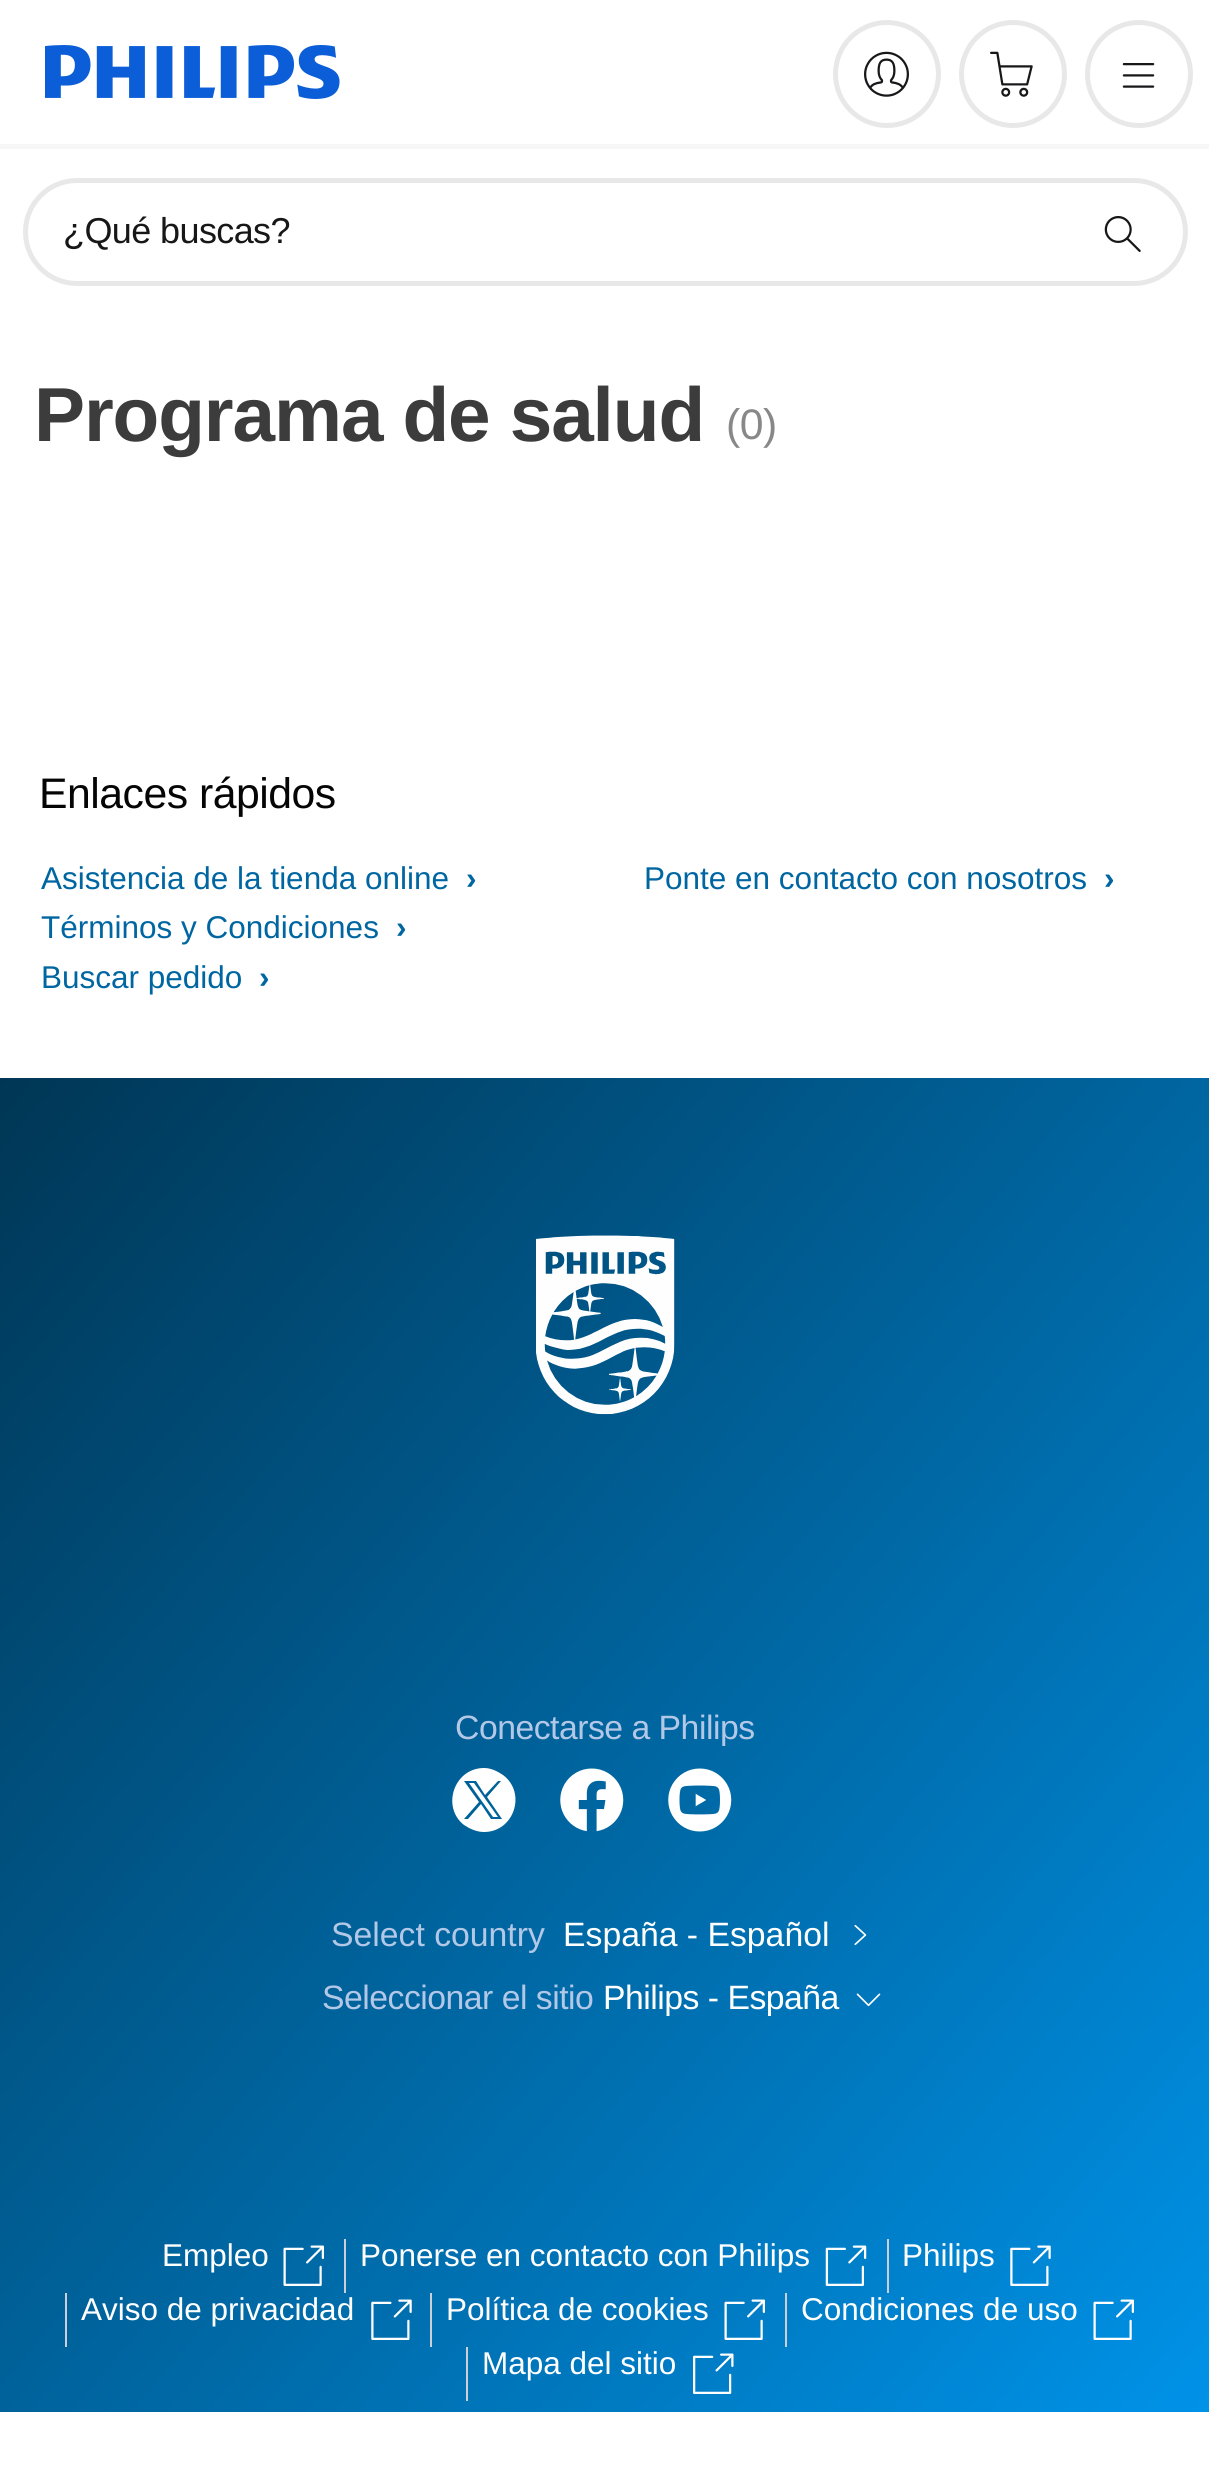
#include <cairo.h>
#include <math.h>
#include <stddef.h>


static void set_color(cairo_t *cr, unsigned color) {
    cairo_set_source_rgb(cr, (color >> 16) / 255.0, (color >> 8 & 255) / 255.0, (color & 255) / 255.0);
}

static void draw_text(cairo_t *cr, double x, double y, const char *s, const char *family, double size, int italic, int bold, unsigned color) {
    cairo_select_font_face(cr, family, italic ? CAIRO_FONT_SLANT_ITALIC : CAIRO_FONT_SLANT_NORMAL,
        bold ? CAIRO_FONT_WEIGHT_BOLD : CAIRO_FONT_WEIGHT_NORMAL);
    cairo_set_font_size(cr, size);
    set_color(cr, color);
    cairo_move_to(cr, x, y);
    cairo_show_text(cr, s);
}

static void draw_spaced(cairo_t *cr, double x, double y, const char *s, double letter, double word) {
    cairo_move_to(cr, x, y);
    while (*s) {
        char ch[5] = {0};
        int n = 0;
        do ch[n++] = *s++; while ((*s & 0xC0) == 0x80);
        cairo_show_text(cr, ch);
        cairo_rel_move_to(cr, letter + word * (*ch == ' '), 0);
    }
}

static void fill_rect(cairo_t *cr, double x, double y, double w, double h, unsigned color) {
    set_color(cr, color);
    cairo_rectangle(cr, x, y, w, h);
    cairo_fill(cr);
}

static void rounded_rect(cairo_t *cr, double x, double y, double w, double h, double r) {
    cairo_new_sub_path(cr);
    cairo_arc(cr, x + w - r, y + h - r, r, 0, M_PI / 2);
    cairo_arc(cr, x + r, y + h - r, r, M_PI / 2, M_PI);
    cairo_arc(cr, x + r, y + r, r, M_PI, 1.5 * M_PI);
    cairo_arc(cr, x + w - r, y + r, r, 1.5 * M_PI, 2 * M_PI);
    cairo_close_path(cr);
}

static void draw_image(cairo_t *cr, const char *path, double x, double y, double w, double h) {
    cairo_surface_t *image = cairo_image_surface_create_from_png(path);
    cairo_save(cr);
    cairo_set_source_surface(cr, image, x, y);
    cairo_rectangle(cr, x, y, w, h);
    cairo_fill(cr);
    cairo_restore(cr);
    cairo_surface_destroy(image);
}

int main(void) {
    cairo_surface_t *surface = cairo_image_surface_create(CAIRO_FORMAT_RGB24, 1209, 2478);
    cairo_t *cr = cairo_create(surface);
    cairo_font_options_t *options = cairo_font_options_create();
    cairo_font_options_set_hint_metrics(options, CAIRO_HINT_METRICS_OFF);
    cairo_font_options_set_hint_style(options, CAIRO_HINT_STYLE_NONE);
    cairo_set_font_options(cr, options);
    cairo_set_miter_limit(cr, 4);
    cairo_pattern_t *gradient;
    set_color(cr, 0xFFFFFF);
    cairo_paint(cr);
    draw_image(cr, "assets/img1.png", 45, 45, 295, 54);
    fill_rect(cr, 0, 144, 1209, 5, 0xF7F7F7);
    cairo_arc(cr, 887, 74, 51.5, 0, 2 * M_PI);
    set_color(cr, 0xE8E8E8);
    cairo_set_line_width(cr, 5);
    cairo_stroke(cr);
    draw_image(cr, "assets/img2.png", 864, 51, 45, 46);
    cairo_arc(cr, 1013, 74, 51.5, 0, 2 * M_PI);
    cairo_stroke(cr);
    draw_image(cr, "assets/img3.png", 990, 51, 43, 46);
    cairo_arc(cr, 1139, 74, 51.5, 0, 2 * M_PI);
    cairo_stroke(cr);
    draw_image(cr, "assets/img4.png", 1122, 63, 33, 25);
    rounded_rect(cr, 25.5, 180.5, 1160, 103, 51.5);
    cairo_stroke(cr);
    cairo_select_font_face(cr, "Liberation Sans", CAIRO_FONT_SLANT_NORMAL, CAIRO_FONT_WEIGHT_NORMAL);
    cairo_set_font_size(cr, 36);
    set_color(cr, 0x171717);
    draw_spaced(cr, 63, 243, "¿Qué buscas?", -0.6, 0);
    draw_image(cr, "assets/img5.png", 1104, 216, 37, 36);
    cairo_select_font_face(cr, "Liberation Sans", CAIRO_FONT_SLANT_NORMAL, CAIRO_FONT_WEIGHT_BOLD);
    cairo_set_font_size(cr, 76.5);
    set_color(cr, 0x3C3C3C);
    draw_spaced(cr, 34, 441, "Programa de salud", -1.1, 0);
    cairo_select_font_face(cr, "Liberation Sans", CAIRO_FONT_SLANT_NORMAL, CAIRO_FONT_WEIGHT_NORMAL);
    cairo_set_font_size(cr, 42.75);
    set_color(cr, 0x888888);
    draw_spaced(cr, 726, 439, "(0)", -0.5, 0);
    set_color(cr, 0x050505);
    draw_spaced(cr, 39, 808, "Enlaces rápidos", -0.5, 0);
    draw_text(cr, 41, 889, "Asistencia de la tienda online", "Liberation Sans", 31.5, 0, 0, 0x0066A1);
    draw_text(cr, 466, 889, "›", "Liberation Sans", 31.5, 0, 1, 0x0066A1);
    draw_text(cr, 41, 938, "Términos y Condiciones", "Liberation Sans", 31.5, 0, 0, 0x0066A1);
    draw_text(cr, 396, 938, "›", "Liberation Sans", 31.5, 0, 1, 0x0066A1);
    draw_text(cr, 41, 988, "Buscar pedido", "Liberation Sans", 31.5, 0, 0, 0x0066A1);
    draw_text(cr, 259, 988, "›", "Liberation Sans", 31.5, 0, 1, 0x0066A1);
    draw_text(cr, 644, 889, "Ponte en contacto con nosotros", "Liberation Sans", 31.5, 0, 0, 0x0066A1);
    draw_text(cr, 1104, 889, "›", "Liberation Sans", 31.5, 0, 1, 0x0066A1);
    gradient = cairo_pattern_create_linear(-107, 1205, 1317, 2397);
    cairo_pattern_add_color_stop_rgba(gradient, 0, 0, 0.212, 0.333, 1);
    cairo_pattern_add_color_stop_rgba(gradient, 0.5, 0, 0.4, 0.631, 1);
    cairo_pattern_add_color_stop_rgba(gradient, 1, 0, 0.588, 0.933, 1);
    cairo_set_source(cr, gradient);
    cairo_pattern_destroy(gradient);
    cairo_rectangle(cr, 0, 1078, 1209, 1334);
    cairo_fill(cr);
    draw_image(cr, "assets/img6.png", 536, 1235, 139, 180);
    cairo_select_font_face(cr, "Liberation Sans", CAIRO_FONT_SLANT_NORMAL, CAIRO_FONT_WEIGHT_NORMAL);
    cairo_set_font_size(cr, 33.75);
    set_color(cr, 0xB3C8E6);
    draw_spaced(cr, 455, 1739, "Conectarse a Philips", -0.5, 0);
    set_color(cr, 0xFFFFFF);
    cairo_new_path(cr);
    cairo_move_to(cr, 484, 1832);
    cairo_curve_to(cr, 514, 1832, 527, 1793, 503, 1775);
    cairo_curve_to(cr, 497, 1771, 491, 1768, 484, 1768);
    cairo_curve_to(cr, 454, 1768, 441, 1807, 464, 1825);
    cairo_curve_to(cr, 470, 1829, 477, 1832, 484, 1832);
    cairo_close_path(cr);
    cairo_move_to(cr, 501, 1781);
    cairo_line_to(cr, 487, 1797);
    cairo_line_to(cr, 502, 1819);
    cairo_line_to(cr, 491, 1819);
    cairo_line_to(cr, 481, 1804);
    cairo_line_to(cr, 468, 1819);
    cairo_line_to(cr, 464, 1819);
    cairo_line_to(cr, 479, 1802);
    cairo_line_to(cr, 464, 1781);
    cairo_line_to(cr, 476, 1781);
    cairo_line_to(cr, 485, 1795);
    cairo_line_to(cr, 498, 1781);
    cairo_close_path(cr);
    cairo_move_to(cr, 481, 1800);
    cairo_line_to(cr, 493, 1817);
    cairo_line_to(cr, 498, 1817);
    cairo_line_to(cr, 474, 1783);
    cairo_line_to(cr, 469, 1783);
    cairo_close_path(cr);
    cairo_fill(cr);
    draw_image(cr, "assets/img7.png", 560, 1768, 64, 64);
    draw_image(cr, "assets/img8.png", 668, 1768, 64, 64);
    draw_text(cr, 331, 1946, "Select country", "Liberation Sans", 33.75, 0, 0, 0xB3C8E6);
    draw_text(cr, 563, 1946, "España - Español", "Liberation Sans", 33.75, 0, 0, 0xFFFFFF);
    draw_image(cr, "assets/img9.png", 854, 1924, 13, 22);
    set_color(cr, 0xB3C8E6);
    draw_spaced(cr, 322, 2009, "Seleccionar el sitio", -0.5, 0);
    set_color(cr, 0xFFFFFF);
    draw_spaced(cr, 603, 2009, "Philips - España", -0.5, 0);
    draw_image(cr, "assets/img10.png", 856, 1993, 25, 14);
    draw_text(cr, 162, 2266, "Empleo", "Liberation Sans", 31.5, 0, 0, 0xFFFFFF);
    draw_image(cr, "assets/img11.png", 283, 2245, 41, 41);
    fill_rect(cr, 344, 2239, 2, 54, 0xCCCED8);
    draw_text(cr, 360, 2266, "Ponerse en contacto con Philips", "Liberation Sans", 31.5, 0, 0, 0xFFFFFF);
    draw_image(cr, "assets/img12.png", 825, 2245, 42, 41);
    fill_rect(cr, 887, 2239, 2, 54, 0xCCCED8);
    draw_text(cr, 902, 2266, "Philips", "Liberation Sans", 31.5, 0, 0, 0xFFFFFF);
    draw_image(cr, "assets/img13.png", 1010, 2245, 41, 41);
    fill_rect(cr, 65, 2293, 2, 54, 0xCCCED8);
    draw_text(cr, 81, 2320, "Aviso de privacidad", "Liberation Sans", 31.5, 0, 0, 0xFFFFFF);
    draw_image(cr, "assets/img14.png", 371, 2299, 41, 41);
    fill_rect(cr, 430, 2293, 2, 54, 0xCCCED8);
    draw_text(cr, 446, 2320, "Política de cookies", "Liberation Sans", 31.5, 0, 0, 0xFFFFFF);
    draw_image(cr, "assets/img15.png", 724, 2299, 41, 41);
    fill_rect(cr, 785, 2293, 2, 54, 0xCCCED8);
    draw_text(cr, 801, 2320, "Condiciones de uso", "Liberation Sans", 31.5, 0, 0, 0xFFFFFF);
    draw_image(cr, "assets/img16.png", 1093, 2299, 41, 41);
    fill_rect(cr, 466, 2347, 2, 54, 0xCCCED8);
    draw_text(cr, 482, 2374, "Mapa del sitio", "Liberation Sans", 31.5, 0, 0, 0xFFFFFF);
    draw_image(cr, "assets/img17.png", 693, 2353, 41, 41);
    cairo_surface_write_to_png(surface, "output.png");
    cairo_font_options_destroy(options);
    cairo_destroy(cr);
    cairo_surface_destroy(surface);
    return 0;
}
